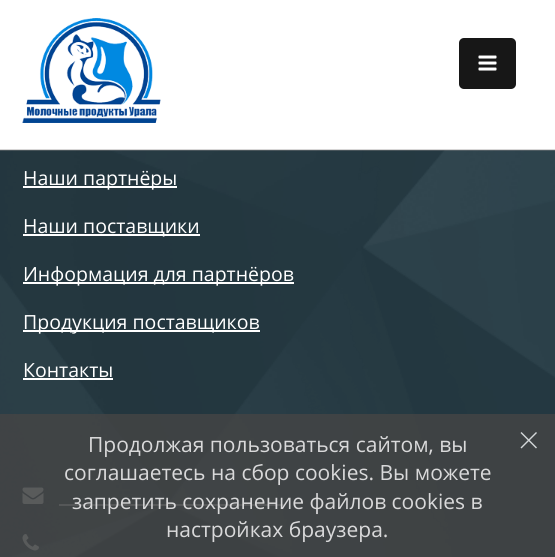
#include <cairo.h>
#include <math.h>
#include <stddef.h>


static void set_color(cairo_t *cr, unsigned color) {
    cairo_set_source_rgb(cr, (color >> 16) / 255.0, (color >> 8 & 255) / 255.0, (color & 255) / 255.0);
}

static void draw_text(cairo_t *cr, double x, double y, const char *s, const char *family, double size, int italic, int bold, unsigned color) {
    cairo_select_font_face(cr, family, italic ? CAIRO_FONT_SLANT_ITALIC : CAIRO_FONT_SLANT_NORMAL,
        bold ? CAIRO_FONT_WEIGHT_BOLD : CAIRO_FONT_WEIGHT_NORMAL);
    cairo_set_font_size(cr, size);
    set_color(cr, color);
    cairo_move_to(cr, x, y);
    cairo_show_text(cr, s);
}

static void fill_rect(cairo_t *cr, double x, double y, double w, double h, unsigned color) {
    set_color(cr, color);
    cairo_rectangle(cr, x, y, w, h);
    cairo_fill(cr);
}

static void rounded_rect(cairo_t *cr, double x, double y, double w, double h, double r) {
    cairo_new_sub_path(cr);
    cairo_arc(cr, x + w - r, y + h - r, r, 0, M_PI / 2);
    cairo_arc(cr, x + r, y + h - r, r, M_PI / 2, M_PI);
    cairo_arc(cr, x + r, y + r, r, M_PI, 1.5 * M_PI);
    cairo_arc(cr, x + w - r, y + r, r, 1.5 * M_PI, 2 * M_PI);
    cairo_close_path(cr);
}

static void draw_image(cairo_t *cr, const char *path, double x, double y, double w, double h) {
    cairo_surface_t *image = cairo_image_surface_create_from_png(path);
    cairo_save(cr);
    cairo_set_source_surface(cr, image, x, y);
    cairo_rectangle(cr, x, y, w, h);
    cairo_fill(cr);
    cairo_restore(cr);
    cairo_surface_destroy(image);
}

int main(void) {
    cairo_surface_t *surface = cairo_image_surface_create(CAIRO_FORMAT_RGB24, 555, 557);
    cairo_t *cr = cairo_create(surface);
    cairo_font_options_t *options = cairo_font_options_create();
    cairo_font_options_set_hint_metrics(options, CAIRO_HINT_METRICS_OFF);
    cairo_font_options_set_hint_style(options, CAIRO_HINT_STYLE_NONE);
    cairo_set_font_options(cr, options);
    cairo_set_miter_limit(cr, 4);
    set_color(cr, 0x253C46);
    cairo_paint(cr);
    fill_rect(cr, 0, 0, 555, 150, 0xFFFFFF);
    draw_image(cr, "assets/img3.png", 0, 150, 555, 407);
    cairo_set_source_rgba(cr, 0.549, 0.541, 0.541, 0.35);
    cairo_rectangle(cr, 0, 149, 555, 2);
    cairo_fill(cr);
    draw_image(cr, "assets/img1.png", 22, 18, 139, 105);
    set_color(cr, 0x171717);
    rounded_rect(cr, 459, 38, 57, 51, 5);
    cairo_fill(cr);
    draw_image(cr, "assets/img2.png", 478, 55, 19, 16);
    fill_rect(cr, 23, 186, 154, 2, 0xFFFFFF);
    draw_text(cr, 23, 185, "Наши партнёры", "Open Sans", 19.5, 0, 0, 0xFFFFFF);
    fill_rect(cr, 23, 234, 177, 2, 0xFFFFFF);
    draw_text(cr, 23, 233, "Наши поставщики", "Open Sans", 19.5, 0, 0, 0xFFFFFF);
    fill_rect(cr, 23, 282, 271, 2, 0xFFFFFF);
    draw_text(cr, 23, 281, "Информация для партнёров", "Open Sans", 19.5, 0, 0, 0xFFFFFF);
    fill_rect(cr, 23, 330, 237, 2, 0xFFFFFF);
    draw_text(cr, 23, 329, "Продукция поставщиков", "Open Sans", 19.5, 0, 0, 0xFFFFFF);
    draw_text(cr, 23, 377, "Контакты", "Open Sans", 19.5, 0, 0, 0xFFFFFF);
    fill_rect(cr, 23, 378, 90, 2, 0xFFFFFF);
    draw_image(cr, "assets/img4.png", 22, 487, 22, 17);
    fill_rect(cr, 59, 504, 225, 2, 0x959FA4);
    draw_image(cr, "assets/img5.png", 22, 534, 17, 17);
    cairo_set_source_rgba(cr, 0.271, 0.271, 0.271, 0.8);
    cairo_rectangle(cr, 0, 414, 555, 143);
    cairo_fill(cr);
    draw_text(cr, 88, 452, "Продолжая пользоваться сайтом, вы", "Open Sans", 21, 0, 0, 0xD9D9DA);
    draw_text(cr, 64, 480, "соглашаетесь на сбор cookies. Вы можете", "Open Sans", 21, 0, 0, 0xD9D9DA);
    draw_text(cr, 72, 509, "запретить сохранение файлов cookies в", "Open Sans", 21, 0, 0, 0xD9D9DA);
    draw_text(cr, 166, 537, "настройках браузера.", "Open Sans", 21, 0, 0, 0xD9D9DA);
    set_color(cr, 0xD3D7D9);
    cairo_new_path(cr);
    cairo_move_to(cr, 520.5, 447.5);
    cairo_line_to(cr, 536, 432);
    cairo_line_to(cr, 537, 433);
    cairo_line_to(cr, 521.5, 448.5);
    cairo_close_path(cr);
    cairo_fill(cr);
    cairo_new_path(cr);
    cairo_move_to(cr, 521.5, 432);
    cairo_line_to(cr, 537, 447.5);
    cairo_line_to(cr, 536, 448.5);
    cairo_line_to(cr, 520.5, 433);
    cairo_close_path(cr);
    cairo_fill(cr);
    cairo_surface_write_to_png(surface, "output.png");
    cairo_font_options_destroy(options);
    cairo_destroy(cr);
    cairo_surface_destroy(surface);
    return 0;
}
